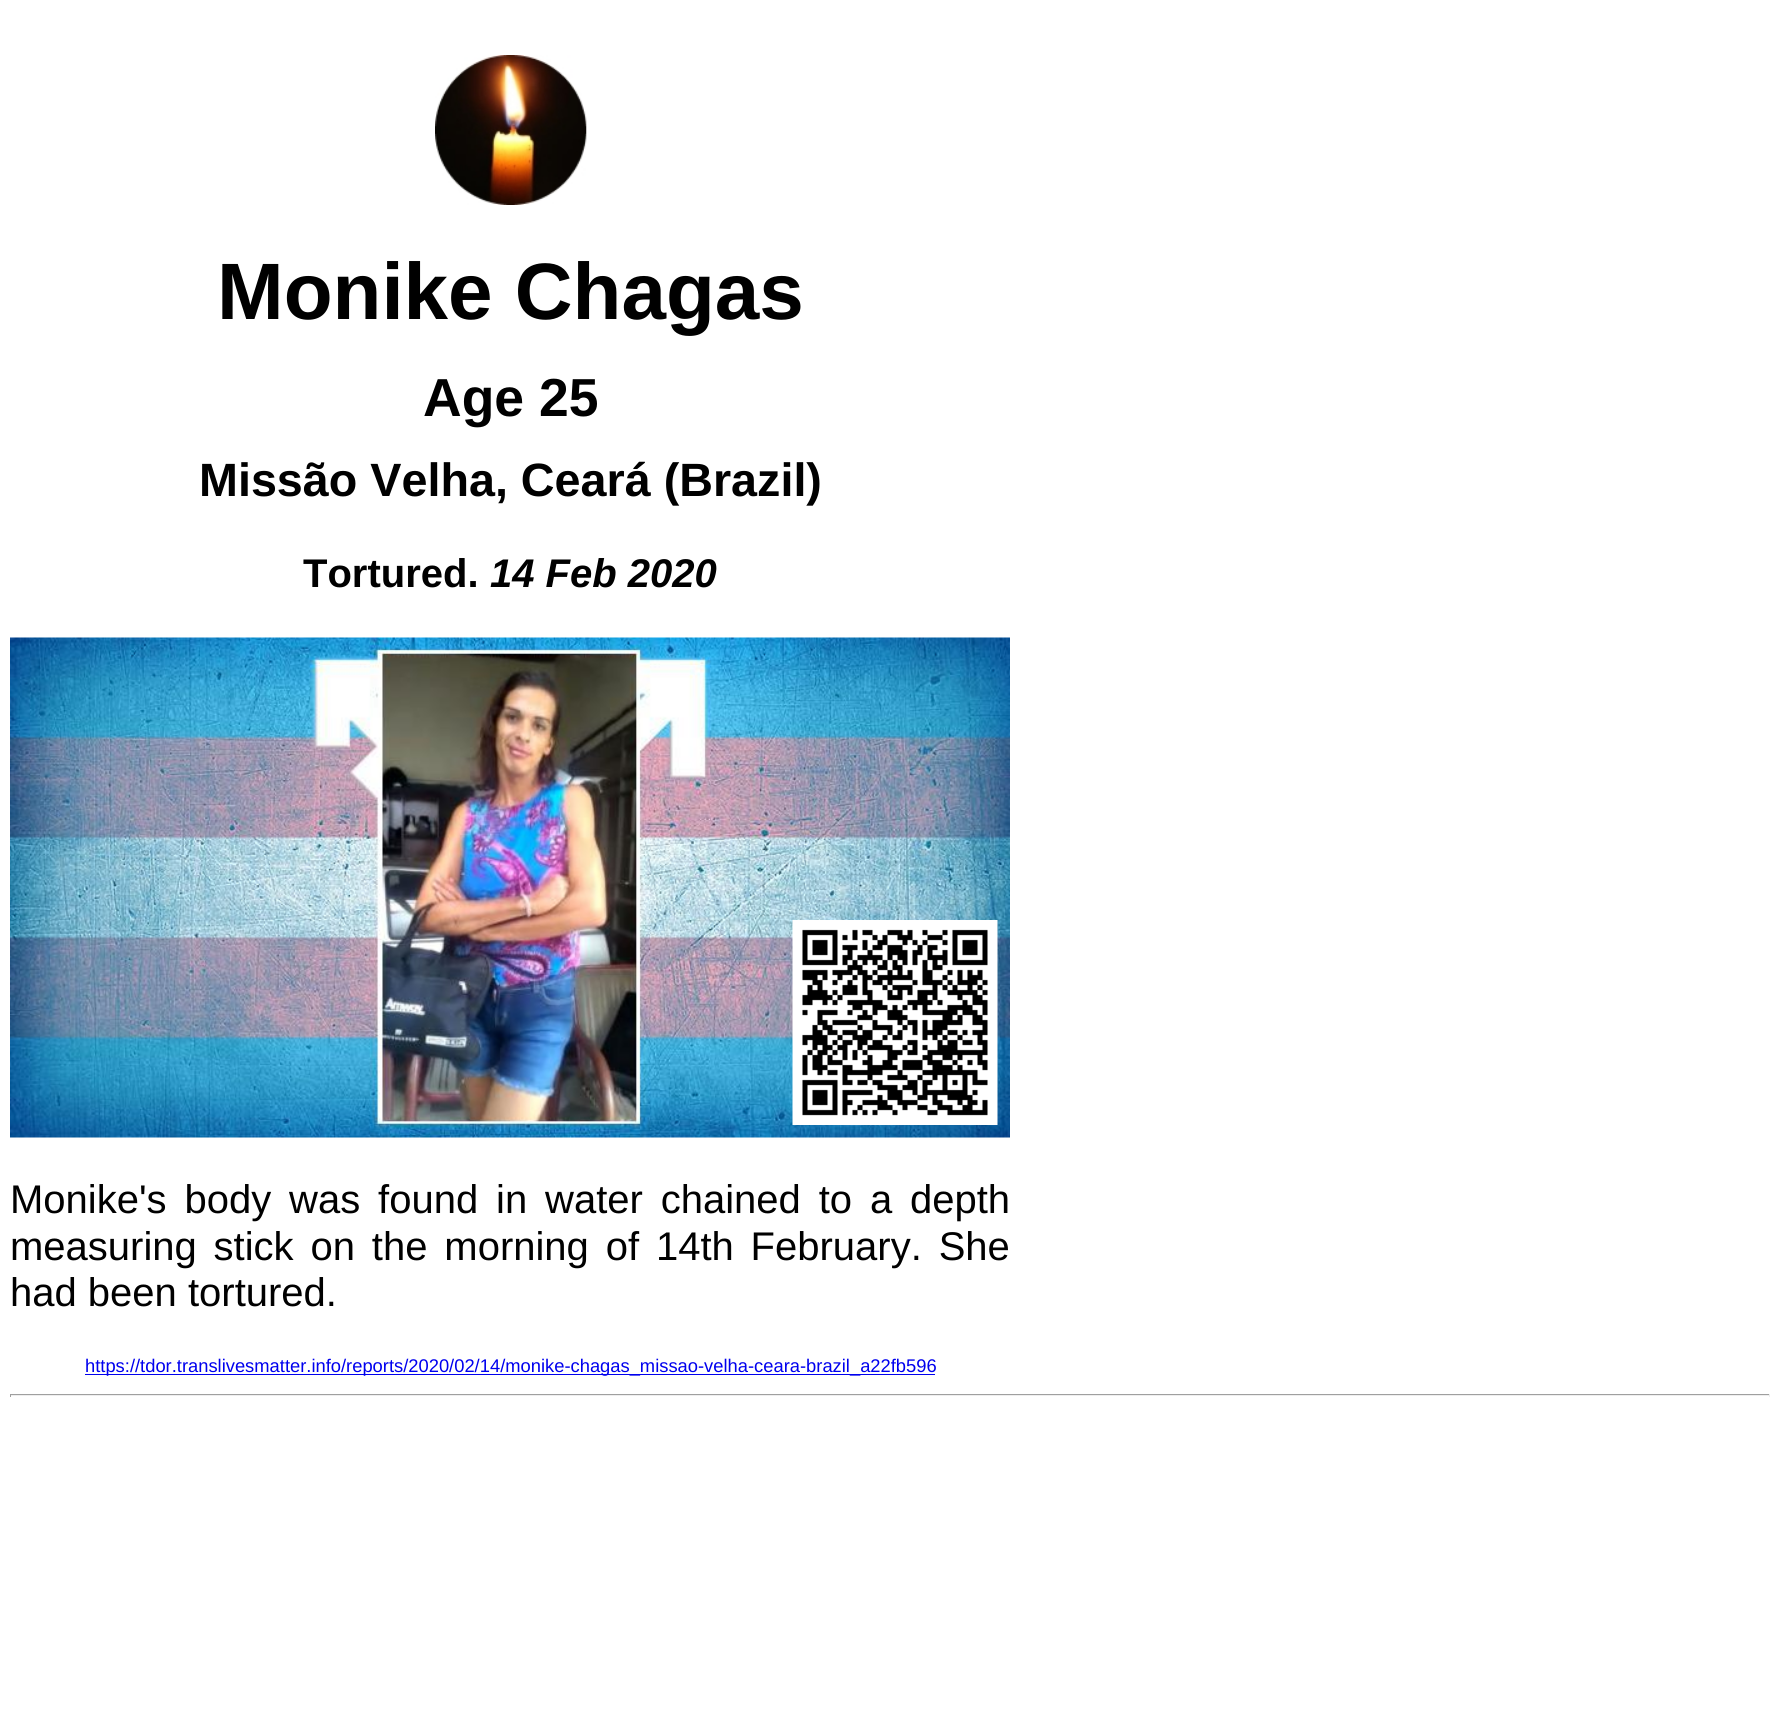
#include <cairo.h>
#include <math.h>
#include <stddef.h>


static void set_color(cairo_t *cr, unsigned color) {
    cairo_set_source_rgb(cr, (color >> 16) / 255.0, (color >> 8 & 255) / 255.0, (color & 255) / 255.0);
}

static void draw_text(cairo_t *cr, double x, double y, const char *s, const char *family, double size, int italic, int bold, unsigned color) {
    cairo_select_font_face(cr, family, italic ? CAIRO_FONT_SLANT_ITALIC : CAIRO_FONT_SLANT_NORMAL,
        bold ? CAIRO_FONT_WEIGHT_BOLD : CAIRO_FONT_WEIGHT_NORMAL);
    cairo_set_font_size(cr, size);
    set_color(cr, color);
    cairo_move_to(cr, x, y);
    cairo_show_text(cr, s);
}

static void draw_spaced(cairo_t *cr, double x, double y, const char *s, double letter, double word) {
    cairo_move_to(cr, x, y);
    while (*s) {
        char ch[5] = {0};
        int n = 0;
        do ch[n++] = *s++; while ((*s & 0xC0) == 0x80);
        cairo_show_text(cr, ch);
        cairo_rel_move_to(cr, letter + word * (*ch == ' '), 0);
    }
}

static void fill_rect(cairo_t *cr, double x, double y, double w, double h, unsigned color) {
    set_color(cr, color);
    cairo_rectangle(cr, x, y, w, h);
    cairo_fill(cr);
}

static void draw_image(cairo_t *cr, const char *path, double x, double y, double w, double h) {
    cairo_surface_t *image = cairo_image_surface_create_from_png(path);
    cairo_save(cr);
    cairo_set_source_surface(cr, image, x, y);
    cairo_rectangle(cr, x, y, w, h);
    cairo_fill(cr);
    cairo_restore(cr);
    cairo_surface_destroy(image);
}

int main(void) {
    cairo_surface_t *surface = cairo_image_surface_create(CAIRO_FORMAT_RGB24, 1779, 1713);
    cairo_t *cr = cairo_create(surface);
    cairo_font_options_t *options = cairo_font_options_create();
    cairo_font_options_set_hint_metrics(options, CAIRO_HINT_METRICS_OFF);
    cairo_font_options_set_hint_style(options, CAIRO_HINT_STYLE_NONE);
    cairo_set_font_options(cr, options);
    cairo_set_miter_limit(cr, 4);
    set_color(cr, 0xFFFFFF);
    cairo_paint(cr);
    draw_image(cr, "assets/img1.png", 435, 55, 152, 150);
    draw_text(cr, 217, 319, "Monike Chagas", "Liberation Sans", 80, 0, 1, 0x000000);
    draw_text(cr, 423, 416, "Age 25", "Liberation Sans", 53.5, 0, 1, 0x000000);
    draw_text(cr, 199, 496, "Missão Velha, Ceará (Brazil)", "Liberation Sans", 46.7, 0, 1, 0x000000);
    draw_text(cr, 303, 587, "Tortured.", "Liberation Sans", 40, 0, 1, 0x000000);
    draw_text(cr, 490, 587, "14 Feb 2020", "Liberation Sans", 40, 1, 1, 0x000000);
    draw_image(cr, "assets/img2.png", 10, 637, 1000, 501);
    draw_image(cr, "assets/img3.png", 792, 920, 206, 205);
    cairo_select_font_face(cr, "Liberation Sans", CAIRO_FONT_SLANT_NORMAL, CAIRO_FONT_WEIGHT_NORMAL);
    draw_spaced(cr, 10, 1213, "Monike's body was found in water chained to a depth", 0, 6.75);
    draw_spaced(cr, 10, 1260, "measuring stick on the morning of 14th February. She", 0, 5.75);
    draw_text(cr, 10, 1306, "had been tortured.", "Liberation Sans", 40, 0, 0, 0x000000);
    fill_rect(cr, 85, 1374, 850, 1, 0x0000EE);
    draw_text(cr, 85, 1372, "https://tdor.translivesmatter.info/reports/2020/02/14/monike-chagas_missao-velha-ceara-brazil_a22fb596", "Liberation Sans", 18.35, 0, 0, 0x0000EE);
    fill_rect(cr, 10, 1394, 1760, 1, 0x9F9F9F);
    fill_rect(cr, 1769, 1394, 1, 3, 0xEEEEEE);
    fill_rect(cr, 10, 1395, 1760, 1, 0xEEEEEE);
    fill_rect(cr, 10, 1394, 1, 3, 0x9F9F9F);
    cairo_surface_write_to_png(surface, "output.png");
    cairo_font_options_destroy(options);
    cairo_destroy(cr);
    cairo_surface_destroy(surface);
    return 0;
}
